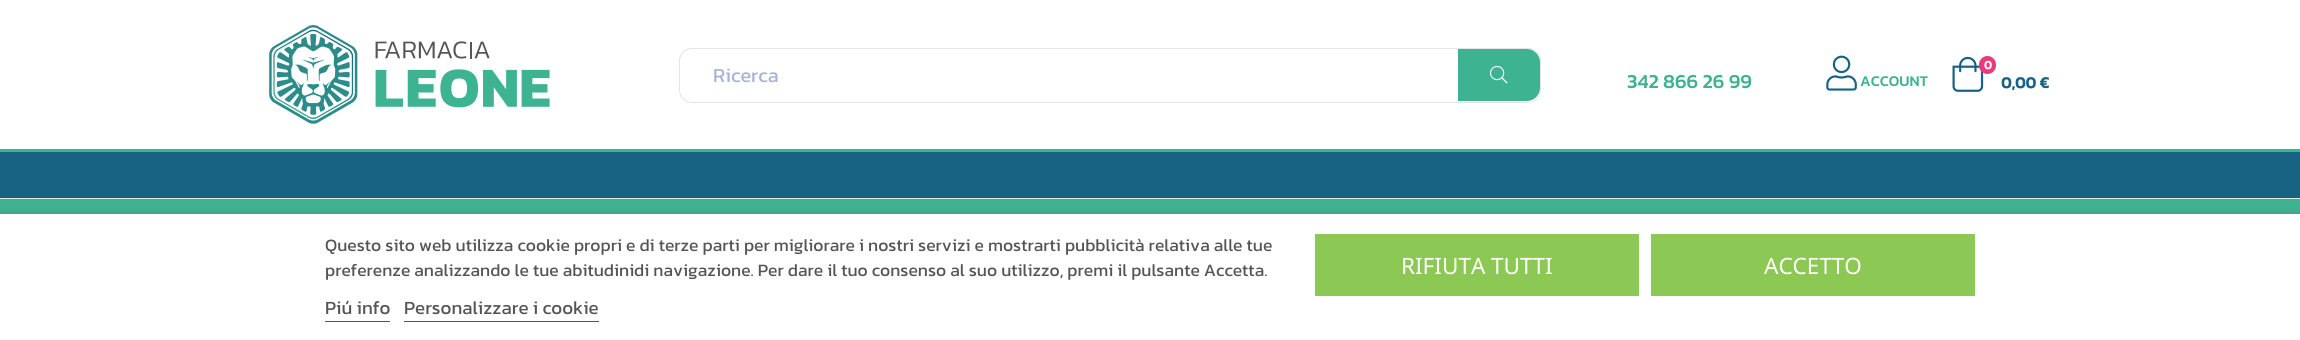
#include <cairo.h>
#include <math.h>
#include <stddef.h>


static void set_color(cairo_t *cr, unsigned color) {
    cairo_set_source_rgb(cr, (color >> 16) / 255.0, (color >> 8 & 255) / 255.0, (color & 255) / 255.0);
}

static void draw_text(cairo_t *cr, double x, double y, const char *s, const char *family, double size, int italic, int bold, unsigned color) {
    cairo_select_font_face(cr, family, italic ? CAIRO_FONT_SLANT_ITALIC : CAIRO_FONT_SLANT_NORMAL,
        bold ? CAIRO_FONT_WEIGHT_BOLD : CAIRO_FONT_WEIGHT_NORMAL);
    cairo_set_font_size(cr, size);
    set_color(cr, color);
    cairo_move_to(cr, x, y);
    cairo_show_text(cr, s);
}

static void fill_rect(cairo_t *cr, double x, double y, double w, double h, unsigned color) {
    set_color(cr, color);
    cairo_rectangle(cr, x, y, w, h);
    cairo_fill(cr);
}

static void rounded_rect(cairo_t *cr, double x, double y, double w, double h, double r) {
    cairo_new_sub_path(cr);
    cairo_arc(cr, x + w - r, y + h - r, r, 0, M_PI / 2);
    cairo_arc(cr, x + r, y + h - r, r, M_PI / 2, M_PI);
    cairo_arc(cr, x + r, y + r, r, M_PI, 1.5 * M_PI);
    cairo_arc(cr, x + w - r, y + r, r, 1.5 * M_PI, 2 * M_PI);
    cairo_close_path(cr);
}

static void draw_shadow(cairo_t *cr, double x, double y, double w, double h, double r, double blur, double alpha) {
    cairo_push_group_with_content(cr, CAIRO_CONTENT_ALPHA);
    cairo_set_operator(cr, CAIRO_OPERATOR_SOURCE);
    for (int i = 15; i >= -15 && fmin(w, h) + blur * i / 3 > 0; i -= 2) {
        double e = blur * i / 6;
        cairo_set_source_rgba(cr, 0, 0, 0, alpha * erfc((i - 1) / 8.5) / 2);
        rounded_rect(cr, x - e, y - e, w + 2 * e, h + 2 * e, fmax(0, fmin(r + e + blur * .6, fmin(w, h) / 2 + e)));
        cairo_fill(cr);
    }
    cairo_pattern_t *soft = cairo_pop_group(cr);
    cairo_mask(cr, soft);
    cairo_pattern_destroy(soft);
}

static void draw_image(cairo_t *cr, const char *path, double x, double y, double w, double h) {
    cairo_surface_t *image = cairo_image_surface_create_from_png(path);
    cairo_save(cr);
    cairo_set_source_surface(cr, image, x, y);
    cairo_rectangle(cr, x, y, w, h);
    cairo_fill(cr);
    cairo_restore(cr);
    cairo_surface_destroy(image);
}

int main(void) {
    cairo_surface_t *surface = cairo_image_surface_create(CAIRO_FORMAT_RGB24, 2300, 340);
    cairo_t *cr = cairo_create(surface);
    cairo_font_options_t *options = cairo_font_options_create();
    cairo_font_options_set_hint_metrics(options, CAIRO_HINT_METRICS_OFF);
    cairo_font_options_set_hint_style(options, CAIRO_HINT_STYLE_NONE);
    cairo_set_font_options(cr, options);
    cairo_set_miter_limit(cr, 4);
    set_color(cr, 0x186283);
    cairo_paint(cr);
    fill_rect(cr, 0, 0, 2300, 149, 0xFFFFFF);
    fill_rect(cr, 0, 149, 2300, 3, 0x3EB391);
    draw_image(cr, "assets/img1.png", 269, 25, 281, 99);
    rounded_rect(cr, 679.5, 48.5, 861, 54, 12.5);
    set_color(cr, 0xE4E4E4);
    cairo_set_line_width(cr, 1);
    cairo_stroke(cr);
    draw_text(cr, 713, 82, "Ricerca", "Kanit", 20, 0, 0, 0xA8B3D3);
    set_color(cr, 0x3EB391);
    cairo_new_path(cr);
    cairo_move_to(cr, 1458, 49);
    cairo_line_to(cr, 1527, 49);
    cairo_curve_to(cr, 1534, 49, 1540, 55, 1540, 62);
    cairo_line_to(cr, 1540, 88);
    cairo_curve_to(cr, 1540, 95, 1534, 101, 1527, 101);
    cairo_line_to(cr, 1458, 101);
    cairo_close_path(cr);
    cairo_fill(cr);
    draw_image(cr, "assets/img2.png", 1490, 65, 18, 19);
    draw_text(cr, 1627, 88, "342 866 26 99", "Kanit Medium", 20, 0, 0, 0x3EB391);
    draw_image(cr, "assets/img3.png", 1826, 55, 31, 36);
    draw_text(cr, 1860, 86, "ACCOUNT", "Kanit Medium", 15, 0, 0, 0x3EB391);
    draw_image(cr, "assets/img4.png", 1952, 56, 32, 36);
    set_color(cr, 0xEB3A7B);
    rounded_rect(cr, 1979, 56, 17, 18, 8.5);
    cairo_fill(cr);
    draw_text(cr, 1984, 69, "0", "Kanit", 12, 0, 1, 0xFFFFFF);
    draw_text(cr, 2001, 88, "0,00 €", "Kanit", 16, 0, 1, 0x186283);
    fill_rect(cr, 0, 199, 2300, 15, 0x3EB391);
    fill_rect(cr, 0, 198, 2300, 1, 0xE6E6E6);
    set_color(cr, 0x707070);
    draw_shadow(cr, 0, 215, 2300, 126, 0, 3, 1);
    fill_rect(cr, 0, 214, 2300, 126, 0xFFFFFF);
    draw_text(cr, 325, 251, "Questo sito web utilizza cookie propri e di terze parti per migliorare i nostri servizi e mostrarti pubblicità relativa alle tue", "Kanit", 17.5, 0, 0, 0x565555);
    draw_text(cr, 325, 276, "preferenze analizzando le tue abitudinidi navigazione. Per dare il tuo consenso al suo utilizzo, premi il pulsante Accetta.", "Kanit", 17.5, 0, 0, 0x565555);
    draw_text(cr, 325, 314, "Piú info", "Kanit", 18.75, 0, 0, 0x565555);
    fill_rect(cr, 325, 321, 65, 1, 0x565555);
    draw_text(cr, 404, 314, "Personalizzare i cookie", "Kanit", 18.75, 0, 0, 0x565555);
    fill_rect(cr, 404, 321, 195, 1, 0x565555);
    fill_rect(cr, 1315, 234, 324, 62, 0x8BC954);
    draw_text(cr, 1401, 274, "RIFIUTA TUTTI", "Noto Sans", 22.5, 0, 0, 0xFFFFFF);
    fill_rect(cr, 1651, 234, 324, 62, 0x8BC954);
    draw_text(cr, 1764, 274, "ACCETTO", "Noto Sans", 22.5, 0, 0, 0xFFFFFF);
    cairo_surface_write_to_png(surface, "output.png");
    cairo_font_options_destroy(options);
    cairo_destroy(cr);
    cairo_surface_destroy(surface);
    return 0;
}
